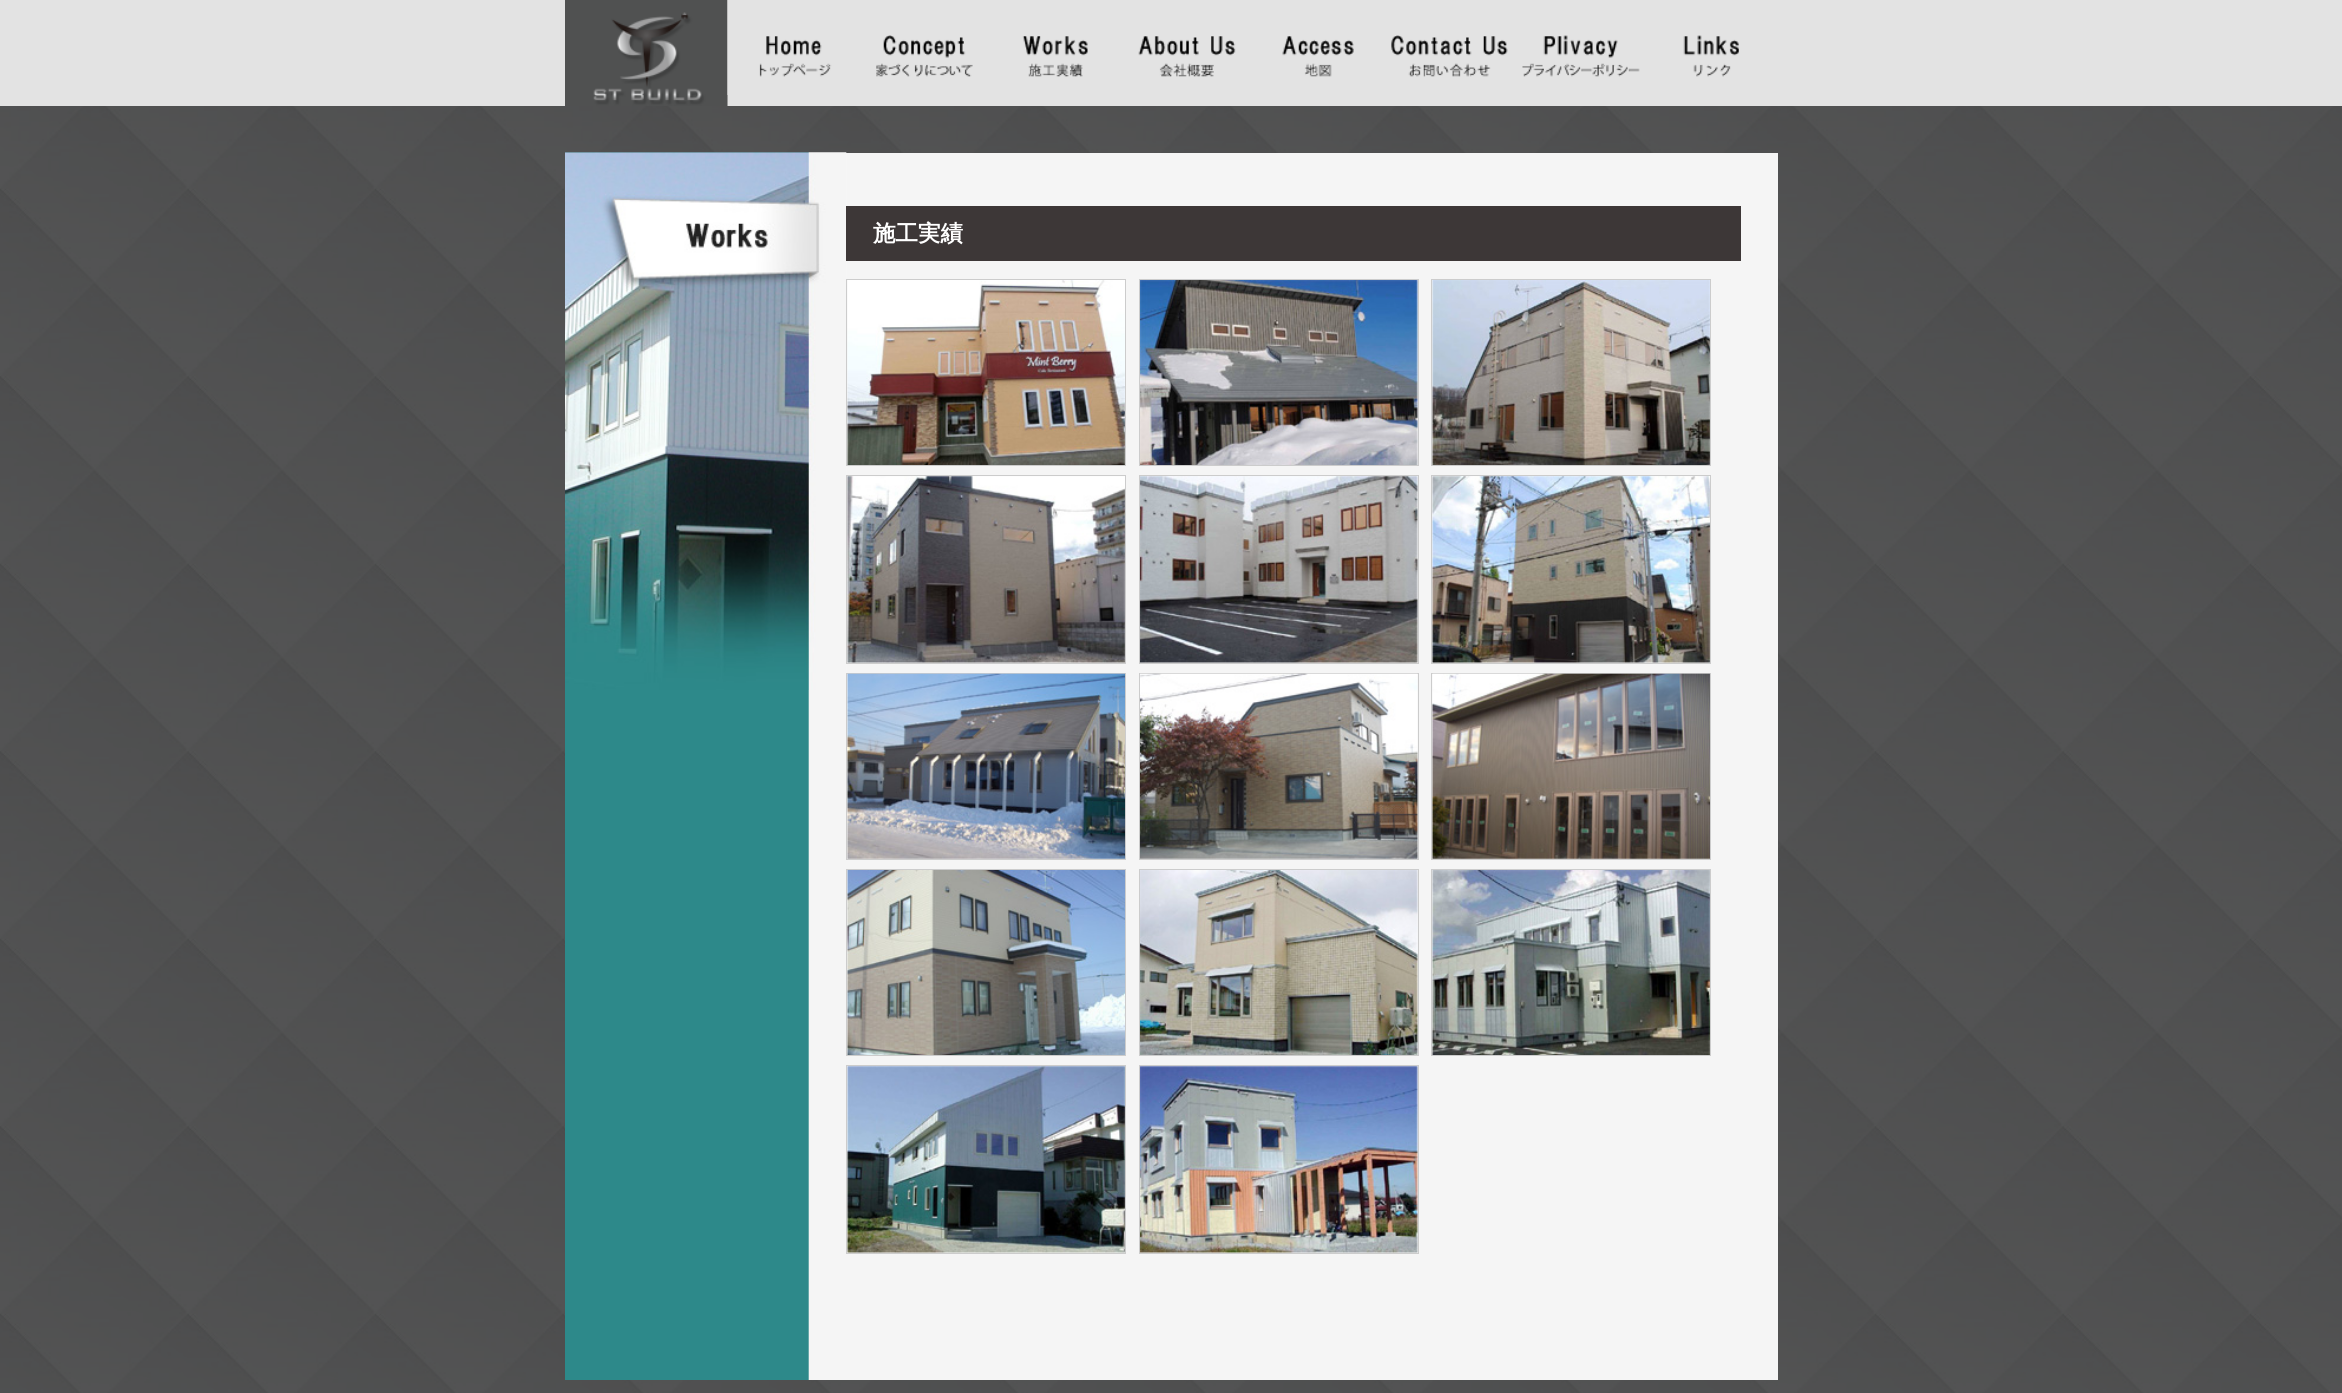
#include <cairo.h>
#include <math.h>
#include <stddef.h>


static void set_color(cairo_t *cr, unsigned color) {
    cairo_set_source_rgb(cr, (color >> 16) / 255.0, (color >> 8 & 255) / 255.0, (color & 255) / 255.0);
}

static void draw_text(cairo_t *cr, double x, double y, const char *s, const char *family, double size, int italic, int bold, unsigned color) {
    cairo_select_font_face(cr, family, italic ? CAIRO_FONT_SLANT_ITALIC : CAIRO_FONT_SLANT_NORMAL,
        bold ? CAIRO_FONT_WEIGHT_BOLD : CAIRO_FONT_WEIGHT_NORMAL);
    cairo_set_font_size(cr, size);
    set_color(cr, color);
    cairo_move_to(cr, x, y);
    cairo_show_text(cr, s);
}

static void fill_rect(cairo_t *cr, double x, double y, double w, double h, unsigned color) {
    set_color(cr, color);
    cairo_rectangle(cr, x, y, w, h);
    cairo_fill(cr);
}

static void draw_image(cairo_t *cr, const char *path, double x, double y, double w, double h) {
    cairo_surface_t *image = cairo_image_surface_create_from_png(path);
    cairo_save(cr);
    cairo_set_source_surface(cr, image, x, y);
    cairo_rectangle(cr, x, y, w, h);
    cairo_fill(cr);
    cairo_restore(cr);
    cairo_surface_destroy(image);
}

int main(void) {
    cairo_surface_t *surface = cairo_image_surface_create(CAIRO_FORMAT_RGB24, 2342, 1393);
    cairo_t *cr = cairo_create(surface);
    cairo_font_options_t *options = cairo_font_options_create();
    cairo_font_options_set_hint_metrics(options, CAIRO_HINT_METRICS_OFF);
    cairo_font_options_set_hint_style(options, CAIRO_HINT_STYLE_NONE);
    cairo_set_font_options(cr, options);
    cairo_set_miter_limit(cr, 4);
    set_color(cr, 0xFFFFFF);
    cairo_paint(cr);
    draw_image(cr, "assets/img1.png", 0, 106, 2342, 1287);
    fill_rect(cr, 0, 0, 2342, 106, 0xE3E3E3);
    draw_image(cr, "assets/img2.png", 565, 0, 163, 106);
    draw_image(cr, "assets/img3.png", 727, 0, 105, 95);
    draw_image(cr, "assets/img4.png", 876, 35, 97, 42);
    draw_image(cr, "assets/img5.png", 1022, 36, 66, 41);
    draw_image(cr, "assets/img6.png", 1138, 36, 98, 41);
    draw_image(cr, "assets/img7.png", 1282, 36, 72, 41);
    draw_image(cr, "assets/img8.png", 1391, 35, 117, 42);
    draw_image(cr, "assets/img9.png", 1522, 35, 118, 42);
    draw_image(cr, "assets/img10.png", 1683, 35, 56, 42);
    fill_rect(cr, 846, 153, 932, 1227, 0xF5F5F5);
    draw_image(cr, "assets/img11.png", 565, 152, 282, 1228);
    draw_image(cr, "assets/img12.png", 565, 152, 282, 538);
    fill_rect(cr, 846, 206, 895, 55, 0x3D3737);
    draw_text(cr, 873, 241, "施工実績", "WenQuanYi Zen Hei", 22.5, 0, 1, 0xFFFFFF);
    cairo_rectangle(cr, 846.5, 279.5, 279, 186);
    set_color(cr, 0xCCCCCC);
    cairo_set_line_width(cr, 1);
    cairo_stroke(cr);
    cairo_rectangle(cr, 1139.5, 279.5, 279, 186);
    cairo_stroke(cr);
    cairo_rectangle(cr, 1431.5, 279.5, 279, 186);
    cairo_stroke(cr);
    draw_image(cr, "assets/img13.png", 847, 280, 278, 185);
    draw_image(cr, "assets/img14.png", 1140, 280, 278, 185);
    draw_image(cr, "assets/img15.png", 1432, 280, 278, 185);
    cairo_rectangle(cr, 846.5, 475.5, 279, 188);
    cairo_stroke(cr);
    cairo_rectangle(cr, 1139.5, 475.5, 279, 188);
    cairo_stroke(cr);
    cairo_rectangle(cr, 1431.5, 475.5, 279, 188);
    cairo_stroke(cr);
    draw_image(cr, "assets/img16.png", 847, 476, 278, 187);
    draw_image(cr, "assets/img17.png", 1140, 476, 278, 187);
    draw_image(cr, "assets/img18.png", 1432, 476, 278, 187);
    cairo_rectangle(cr, 846.5, 673.5, 279, 186);
    cairo_stroke(cr);
    draw_image(cr, "assets/img19.png", 847, 673, 278, 186);
    cairo_rectangle(cr, 1139.5, 673.5, 279, 186);
    cairo_stroke(cr);
    draw_image(cr, "assets/img20.png", 1140, 673, 278, 186);
    cairo_rectangle(cr, 1431.5, 673.5, 279, 186);
    cairo_stroke(cr);
    draw_image(cr, "assets/img21.png", 1432, 673, 278, 186);
    cairo_rectangle(cr, 846.5, 869.5, 279, 186);
    cairo_stroke(cr);
    cairo_rectangle(cr, 1139.5, 869.5, 279, 186);
    cairo_stroke(cr);
    cairo_rectangle(cr, 1431.5, 869.5, 279, 186);
    cairo_stroke(cr);
    draw_image(cr, "assets/img22.png", 847, 870, 278, 185);
    draw_image(cr, "assets/img23.png", 1140, 870, 278, 185);
    draw_image(cr, "assets/img24.png", 1432, 870, 278, 185);
    cairo_rectangle(cr, 846.5, 1065.5, 279, 188);
    cairo_stroke(cr);
    cairo_rectangle(cr, 1139.5, 1065.5, 279, 188);
    cairo_stroke(cr);
    draw_image(cr, "assets/img25.png", 847, 1066, 278, 187);
    draw_image(cr, "assets/img26.png", 1140, 1066, 278, 187);
    cairo_surface_write_to_png(surface, "output.png");
    cairo_font_options_destroy(options);
    cairo_destroy(cr);
    cairo_surface_destroy(surface);
    return 0;
}
